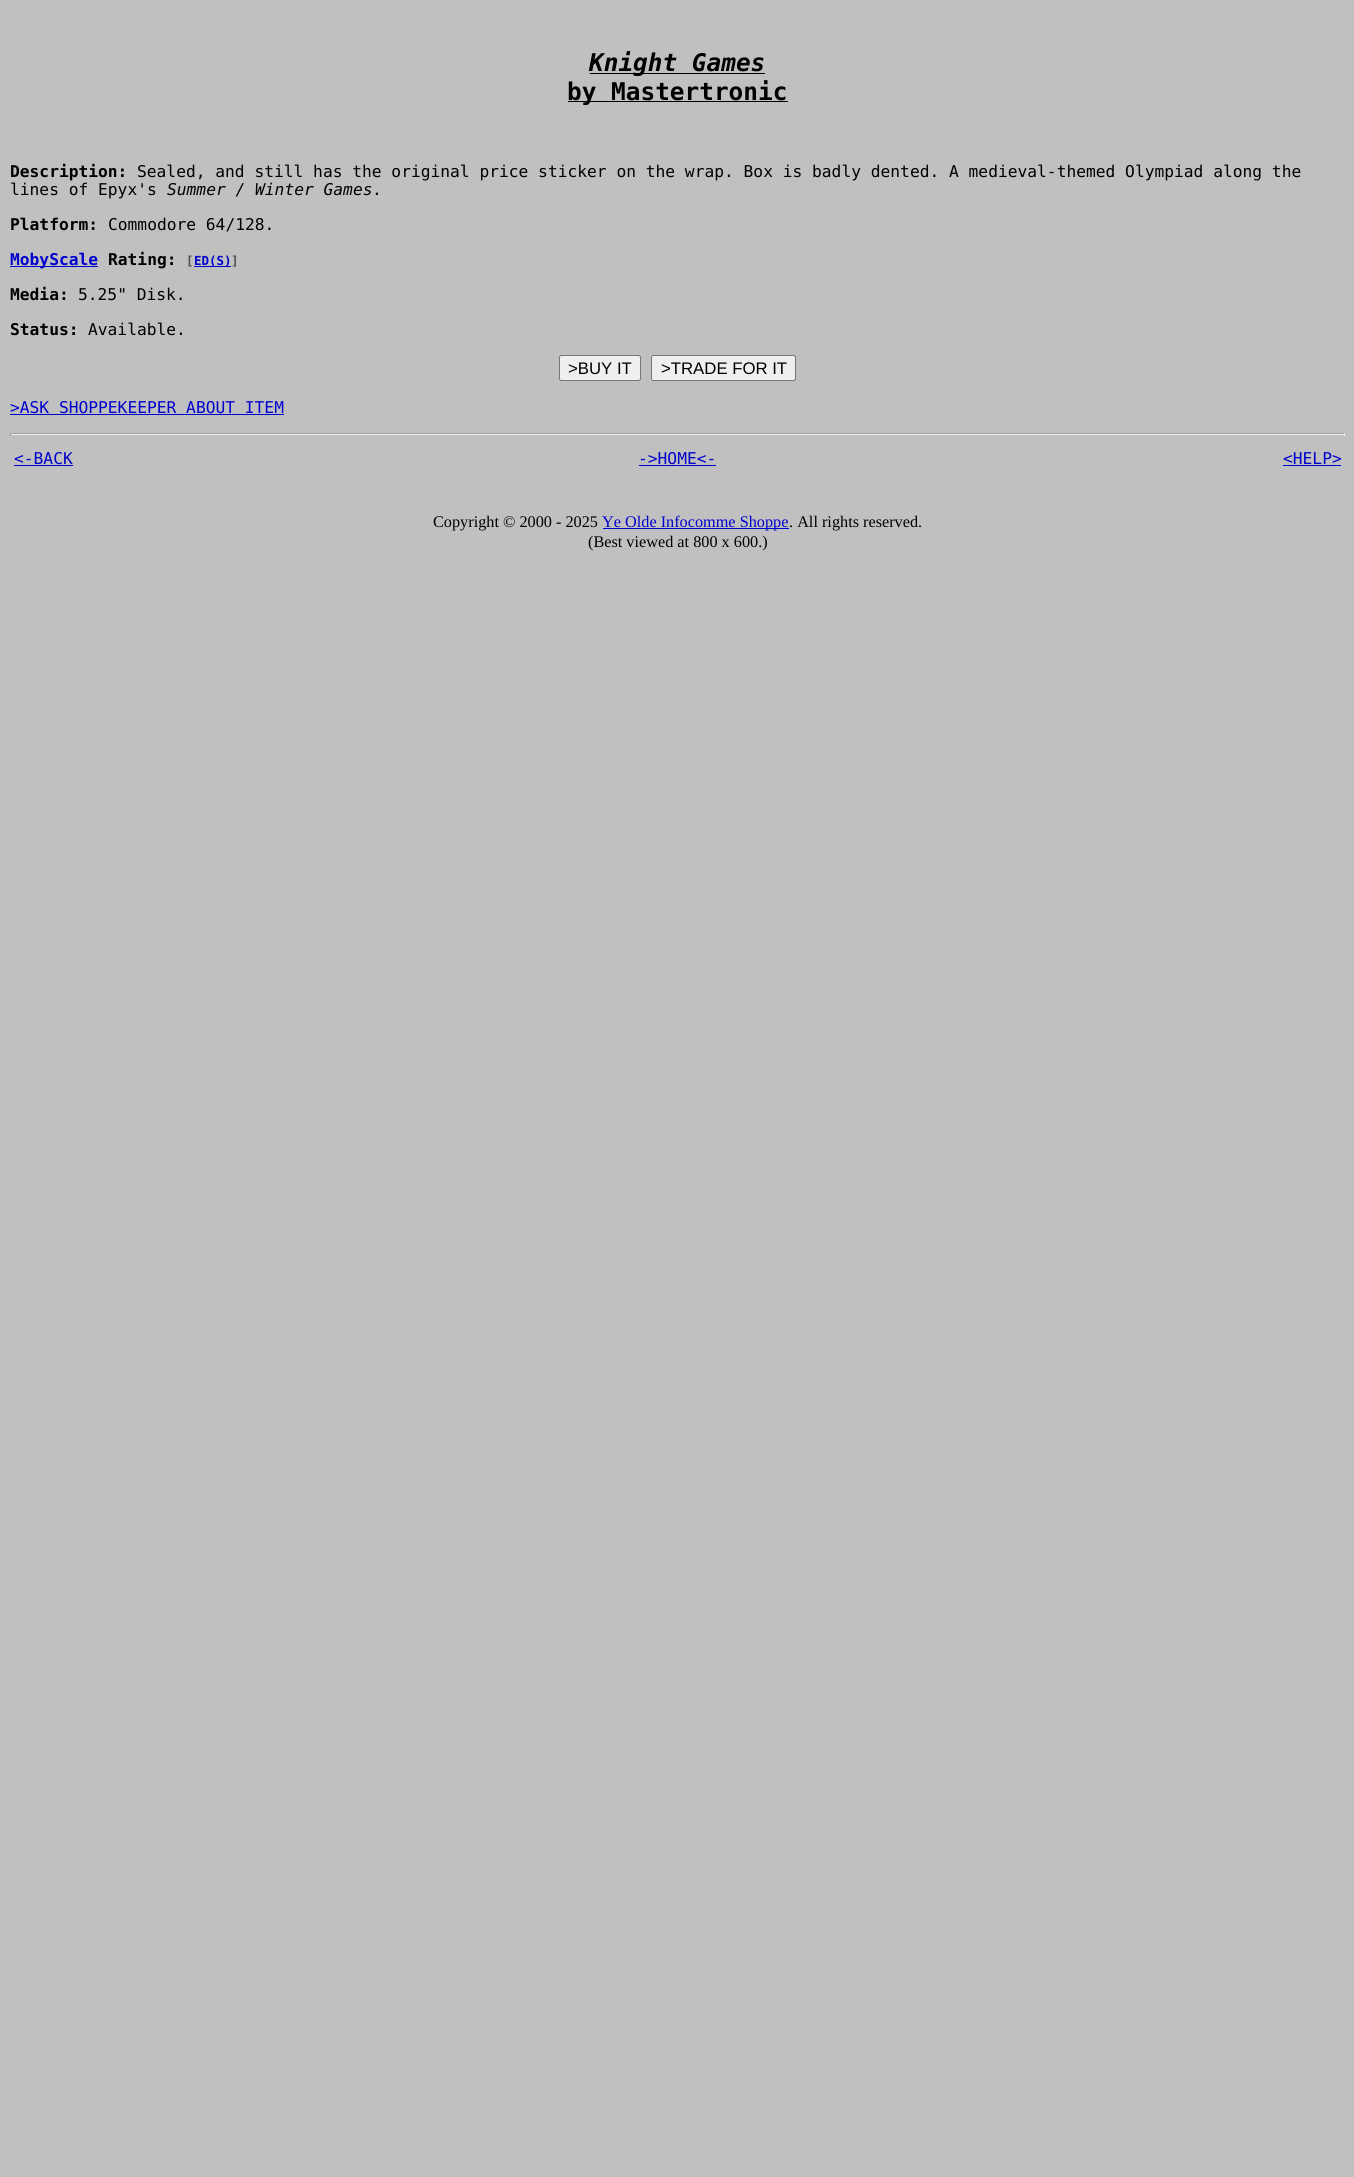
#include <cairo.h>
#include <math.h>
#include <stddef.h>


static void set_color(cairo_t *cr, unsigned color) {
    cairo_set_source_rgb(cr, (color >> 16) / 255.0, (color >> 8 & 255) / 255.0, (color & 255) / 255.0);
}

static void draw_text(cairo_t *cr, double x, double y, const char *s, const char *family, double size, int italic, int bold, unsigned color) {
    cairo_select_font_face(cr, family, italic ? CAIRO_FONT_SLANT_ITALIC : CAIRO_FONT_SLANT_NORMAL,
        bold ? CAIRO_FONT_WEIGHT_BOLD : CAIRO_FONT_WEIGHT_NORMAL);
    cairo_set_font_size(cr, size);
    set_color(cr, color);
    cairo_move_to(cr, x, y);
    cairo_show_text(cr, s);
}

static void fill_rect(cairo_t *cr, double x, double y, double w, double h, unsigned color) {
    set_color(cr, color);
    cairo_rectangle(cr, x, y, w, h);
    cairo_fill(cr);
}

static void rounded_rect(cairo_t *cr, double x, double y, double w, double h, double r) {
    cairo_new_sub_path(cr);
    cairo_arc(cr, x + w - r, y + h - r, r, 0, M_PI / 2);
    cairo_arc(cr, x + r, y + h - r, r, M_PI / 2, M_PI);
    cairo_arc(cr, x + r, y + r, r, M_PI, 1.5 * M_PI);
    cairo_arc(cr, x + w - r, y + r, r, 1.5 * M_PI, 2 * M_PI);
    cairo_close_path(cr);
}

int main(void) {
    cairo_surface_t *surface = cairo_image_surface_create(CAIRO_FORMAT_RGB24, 1354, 2177);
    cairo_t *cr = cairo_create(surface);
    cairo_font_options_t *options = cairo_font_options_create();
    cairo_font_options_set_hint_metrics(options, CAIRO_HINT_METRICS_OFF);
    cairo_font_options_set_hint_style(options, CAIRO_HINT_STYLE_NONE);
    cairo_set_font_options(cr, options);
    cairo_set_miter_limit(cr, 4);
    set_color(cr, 0xC0C0C0);
    cairo_paint(cr);
    fill_rect(cr, 590, 73, 175, 1, 0x000000);
    draw_text(cr, 589, 71, "Knight Games", "DejaVu Sans Mono", 24.4, 1, 1, 0x000000);
    fill_rect(cr, 568, 101, 220, 1, 0x000000);
    draw_text(cr, 567, 100, "by Mastertronic", "DejaVu Sans Mono", 24.4, 0, 1, 0x000000);
    draw_text(cr, 10, 177, "Description:", "DejaVu Sans Mono", 16.25, 0, 1, 0x000000);
    draw_text(cr, 137, 177, "Sealed, and still has the original price sticker on the wrap. Box is badly dented. A medieval-themed Olympiad along the", "DejaVu Sans Mono", 16.25, 0, 0, 0x000000);
    draw_text(cr, 10, 195, "lines of Epyx's", "DejaVu Sans Mono", 16.25, 0, 0, 0x000000);
    draw_text(cr, 167, 195, "Summer / Winter Games", "DejaVu Sans Mono", 16.25, 1, 0, 0x000000);
    draw_text(cr, 372, 195, ".", "DejaVu Sans Mono", 16.25, 0, 0, 0x000000);
    draw_text(cr, 10, 230, "Platform:", "DejaVu Sans Mono", 16.25, 0, 1, 0x000000);
    draw_text(cr, 108, 230, "Commodore 64/128.", "DejaVu Sans Mono", 16.25, 0, 0, 0x000000);
    fill_rect(cr, 10, 266, 88, 1, 0x0000CC);
    draw_text(cr, 10, 265, "MobyScale", "DejaVu Sans Mono", 16.25, 0, 1, 0x0000CC);
    draw_text(cr, 108, 265, "Rating:", "DejaVu Sans Mono", 16.25, 0, 1, 0x000000);
    draw_text(cr, 186, 265, "[", "DejaVu Sans Mono", 12.5, 0, 1, 0x505050);
    fill_rect(cr, 194, 266, 37, 1, 0x0000CC);
    draw_text(cr, 194, 265, "ED(S)", "DejaVu Sans Mono", 12.5, 0, 1, 0x0000CC);
    draw_text(cr, 231, 265, "]", "DejaVu Sans Mono", 12.5, 0, 1, 0x505050);
    draw_text(cr, 10, 300, "Media:", "DejaVu Sans Mono", 16.25, 0, 1, 0x000000);
    draw_text(cr, 78, 300, "5.25\" Disk.", "DejaVu Sans Mono", 16.25, 0, 0, 0x000000);
    draw_text(cr, 10, 335, "Status:", "DejaVu Sans Mono", 16.25, 0, 1, 0x000000);
    draw_text(cr, 88, 335, "Available.", "DejaVu Sans Mono", 16.25, 0, 0, 0x000000);
    set_color(cr, 0xEFEFEF);
    rounded_rect(cr, 559.5, 355.5, 81, 25, 2);
    cairo_fill_preserve(cr);
    set_color(cr, 0x767676);
    cairo_set_line_width(cr, 1);
    cairo_stroke(cr);
    draw_text(cr, 568, 374, ">BUY IT", "Liberation Sans", 16.75, 0, 0, 0x000000);
    set_color(cr, 0xEFEFEF);
    rounded_rect(cr, 651.5, 355.5, 144, 25, 2);
    cairo_fill_preserve(cr);
    set_color(cr, 0x767676);
    cairo_stroke(cr);
    draw_text(cr, 661, 374, ">TRADE FOR IT", "Liberation Sans", 16.75, 0, 0, 0x000000);
    draw_text(cr, 10, 413, ">ASK SHOPPEKEEPER ABOUT ITEM", "DejaVu Sans Mono", 16.25, 0, 0, 0x0000CC);
    fill_rect(cr, 10, 414, 274, 1, 0x0000CC);
    fill_rect(cr, 10, 433, 1335, 1, 0x9F9F9F);
    fill_rect(cr, 1344, 433, 1, 3, 0xEEEEEE);
    fill_rect(cr, 10, 434, 1335, 1, 0xEEEEEE);
    fill_rect(cr, 10, 433, 1, 3, 0x9F9F9F);
    draw_text(cr, 14, 464, "<-BACK", "DejaVu Sans Mono", 16.25, 0, 0, 0x0000CC);
    fill_rect(cr, 14, 465, 59, 1, 0x0000CC);
    draw_text(cr, 638, 464, "->HOME<-", "DejaVu Sans Mono", 16.25, 0, 0, 0x0000CC);
    fill_rect(cr, 639, 465, 77, 1, 0x0000CC);
    draw_text(cr, 1283, 464, "<HELP>", "DejaVu Sans Mono", 16.25, 0, 0, 0x0000CC);
    fill_rect(cr, 1283, 465, 58, 1, 0x0000CC);
    draw_text(cr, 433, 527, "Copyright © 2000 - 2025", "Liberation Serif", 16.25, 0, 0, 0x000000);
    fill_rect(cr, 603, 528, 186, 1, 0x0000CC);
    draw_text(cr, 602, 527, "Ye Olde Infocomme Shoppe", "Liberation Serif", 16.25, 0, 0, 0x0000CC);
    draw_text(cr, 789, 527, ". All rights reserved.", "Liberation Serif", 16.25, 0, 0, 0x000000);
    draw_text(cr, 588, 547, "(Best viewed at 800 x 600.)", "Liberation Serif", 16.25, 0, 0, 0x000000);
    cairo_surface_write_to_png(surface, "output.png");
    cairo_font_options_destroy(options);
    cairo_destroy(cr);
    cairo_surface_destroy(surface);
    return 0;
}
